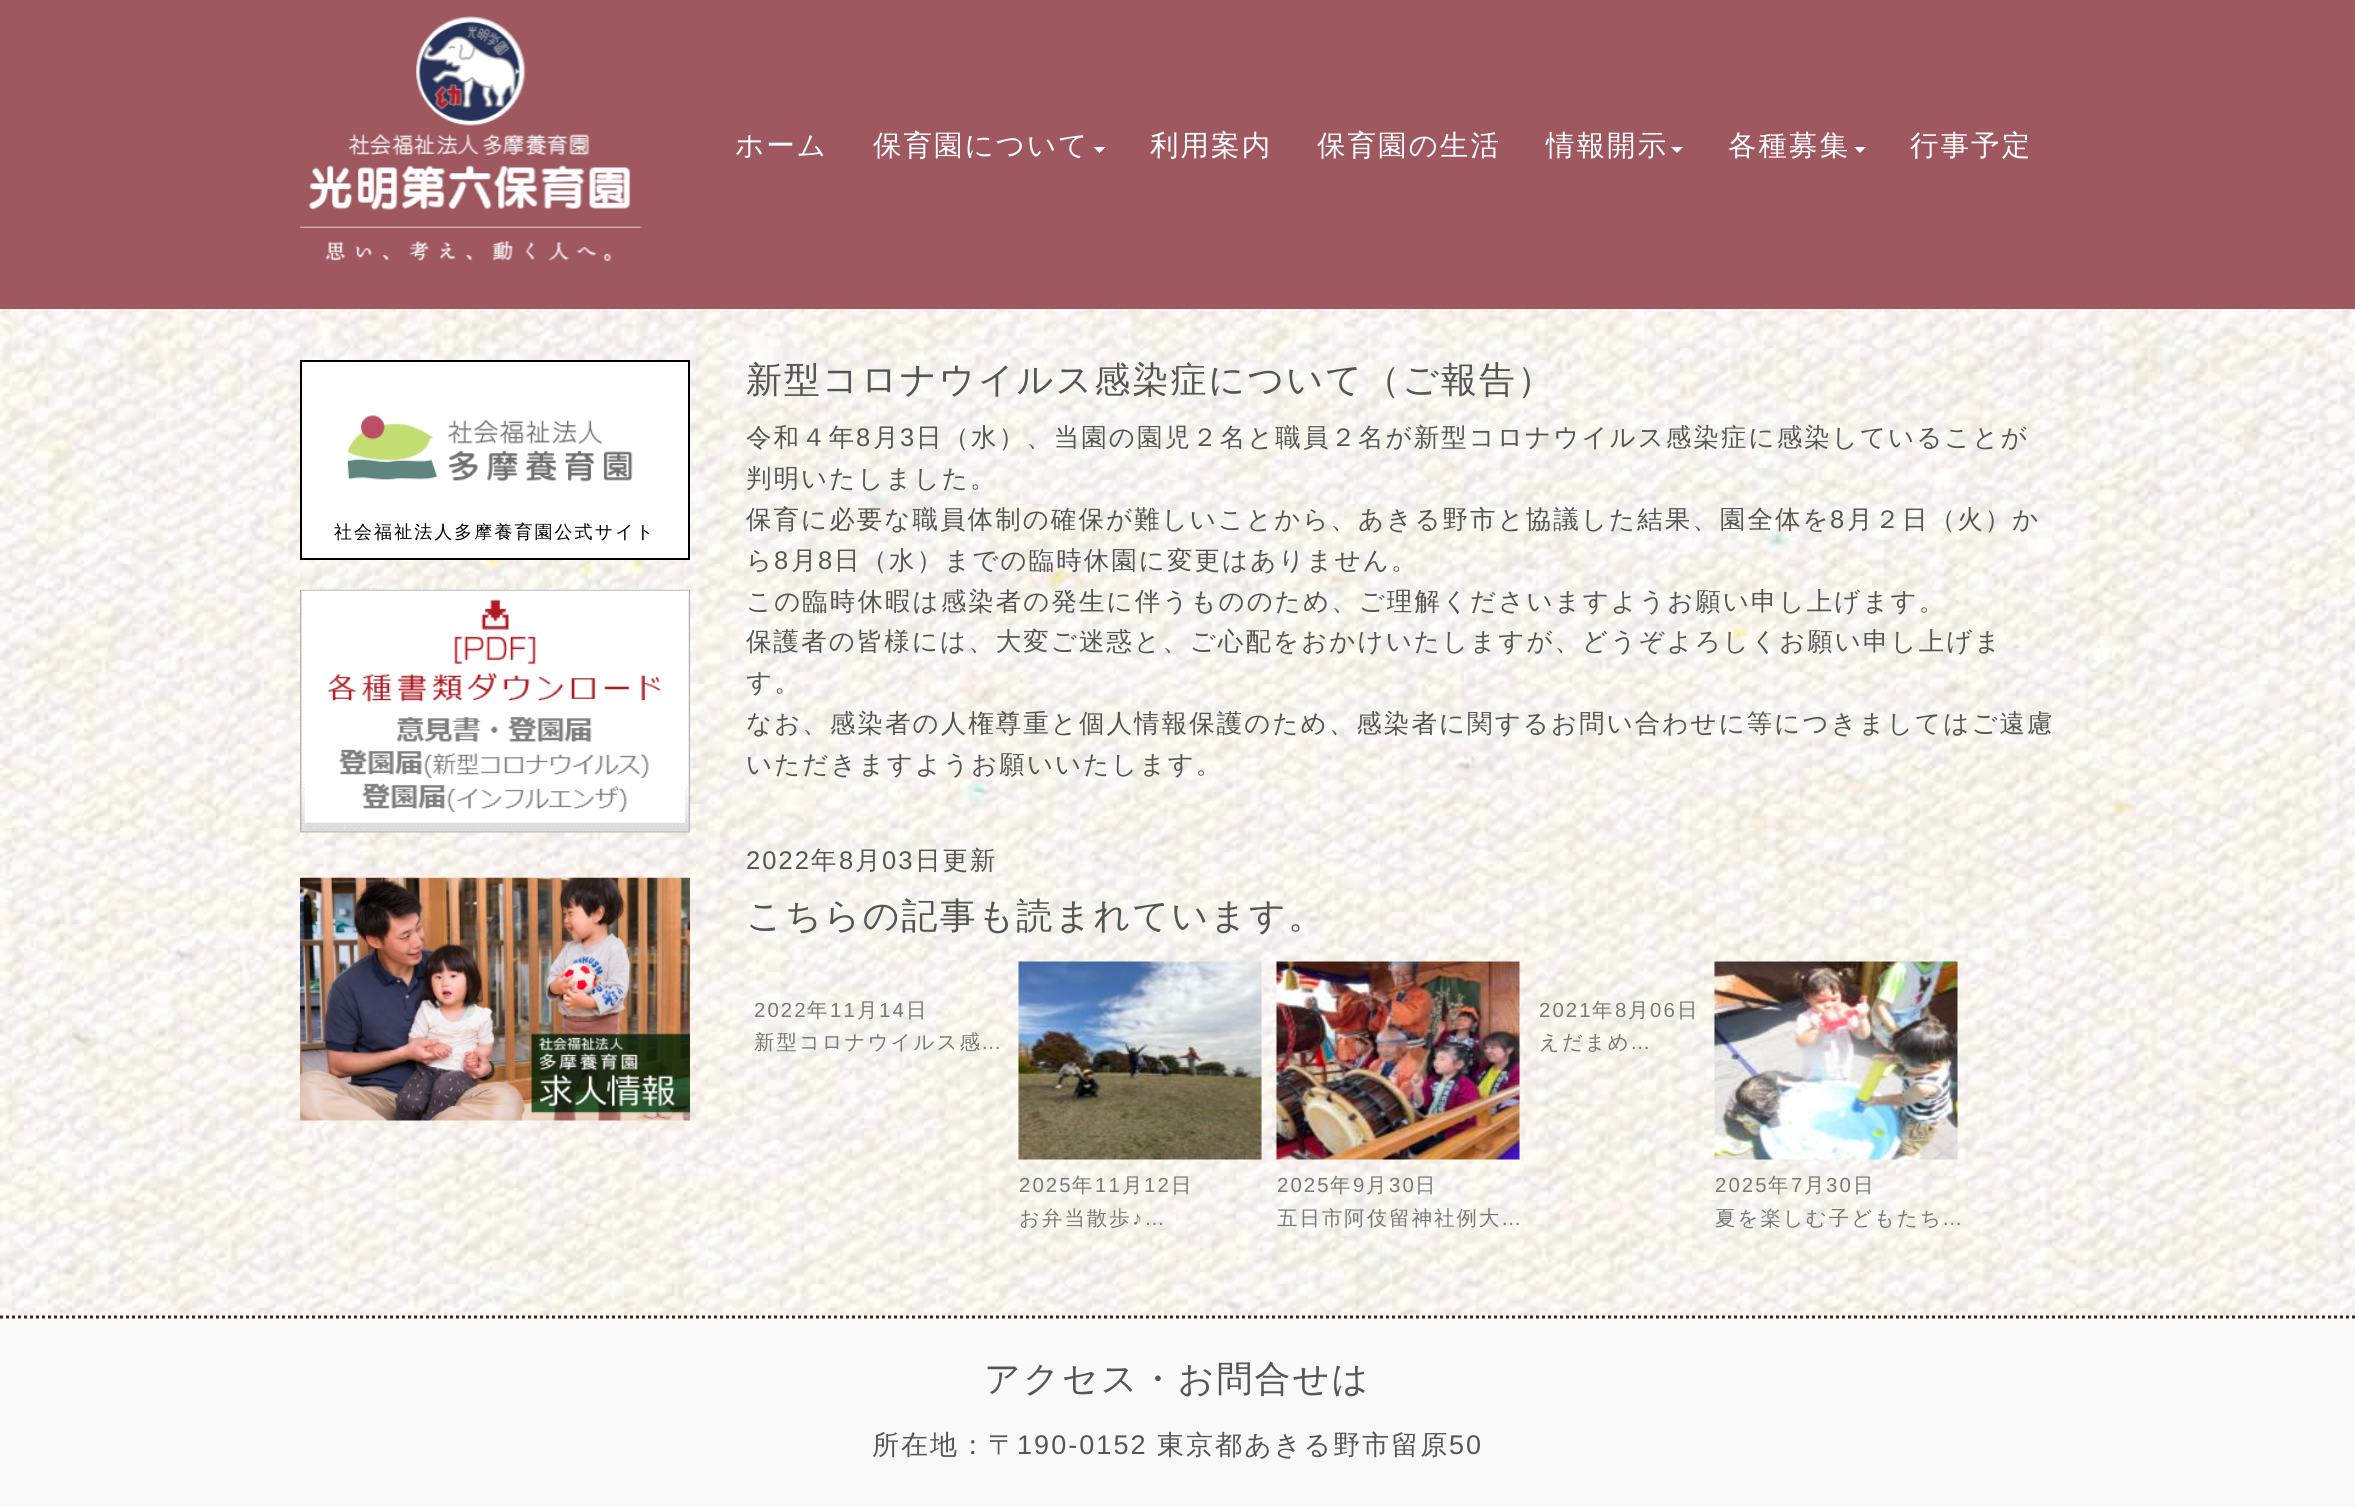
#include <cairo.h>
#include <math.h>
#include <stddef.h>


static void set_color(cairo_t *cr, unsigned color) {
    cairo_set_source_rgb(cr, (color >> 16) / 255.0, (color >> 8 & 255) / 255.0, (color & 255) / 255.0);
}

static void draw_spaced(cairo_t *cr, double x, double y, const char *s, double letter, double word) {
    cairo_move_to(cr, x, y);
    while (*s) {
        char ch[5] = {0};
        int n = 0;
        do ch[n++] = *s++; while ((*s & 0xC0) == 0x80);
        cairo_show_text(cr, ch);
        cairo_rel_move_to(cr, letter + word * (*ch == ' '), 0);
    }
}

static void fill_rect(cairo_t *cr, double x, double y, double w, double h, unsigned color) {
    set_color(cr, color);
    cairo_rectangle(cr, x, y, w, h);
    cairo_fill(cr);
}

static void draw_image(cairo_t *cr, const char *path, double x, double y, double w, double h) {
    cairo_surface_t *image = cairo_image_surface_create_from_png(path);
    cairo_save(cr);
    cairo_set_source_surface(cr, image, x, y);
    cairo_rectangle(cr, x, y, w, h);
    cairo_fill(cr);
    cairo_restore(cr);
    cairo_surface_destroy(image);
}

int main(void) {
    cairo_surface_t *surface = cairo_image_surface_create(CAIRO_FORMAT_RGB24, 2355, 1507);
    cairo_t *cr = cairo_create(surface);
    cairo_font_options_t *options = cairo_font_options_create();
    cairo_font_options_set_hint_metrics(options, CAIRO_HINT_METRICS_OFF);
    cairo_font_options_set_hint_style(options, CAIRO_HINT_STYLE_NONE);
    cairo_set_font_options(cr, options);
    cairo_set_miter_limit(cr, 4);
    set_color(cr, 0xFFFFFF);
    cairo_paint(cr);
    draw_image(cr, "assets/img1.png", 0, 309, 2355, 1007);
    fill_rect(cr, 0, 0, 2355, 309, 0x9F5860);
    draw_image(cr, "assets/img2.png", 300, 16, 342, 245);
    cairo_select_font_face(cr, "WenQuanYi Zen Hei Medium", CAIRO_FONT_SLANT_NORMAL, CAIRO_FONT_WEIGHT_NORMAL);
    cairo_set_font_size(cr, 28.5);
    set_color(cr, 0xFFFFFF);
    draw_spaced(cr, 735, 155, "ホーム", 2.05, 0);
    draw_spaced(cr, 873, 155, "保育園について", 2.05, 0);
    cairo_new_path(cr);
    cairo_move_to(cr, 1093.5, 147);
    cairo_line_to(cr, 1105.5, 147);
    cairo_line_to(cr, 1099.5, 153);
    cairo_close_path(cr);
    cairo_fill(cr);
    draw_spaced(cr, 1150, 155, "利用案内", 2.05, 0);
    draw_spaced(cr, 1317, 155, "保育園の生活", 2.05, 0);
    draw_spaced(cr, 1546, 155, "情報開示", 2.05, 0);
    cairo_new_path(cr);
    cairo_move_to(cr, 1671, 147);
    cairo_line_to(cr, 1683, 147);
    cairo_line_to(cr, 1677, 153);
    cairo_close_path(cr);
    cairo_fill(cr);
    draw_spaced(cr, 1728, 155, "各種募集", 2.05, 0);
    cairo_new_path(cr);
    cairo_move_to(cr, 1854, 147);
    cairo_line_to(cr, 1866, 147);
    cairo_line_to(cr, 1860, 153);
    cairo_close_path(cr);
    cairo_fill(cr);
    draw_spaced(cr, 1910, 155, "行事予定", 2.05, 0);
    cairo_rectangle(cr, 301, 361, 388, 198);
    cairo_fill_preserve(cr);
    set_color(cr, 0x000000);
    cairo_stroke(cr);
    draw_image(cr, "assets/img3.png", 346, 415, 287, 67);
    cairo_set_font_size(cr, 18);
    draw_spaced(cr, 334, 538, "社会福祉法人多摩養育園公式サイト", 2.05, 0);
    draw_image(cr, "assets/img4.png", 300, 589, 390, 244);
    draw_image(cr, "assets/img5.png", 300, 877, 390, 244);
    cairo_set_font_size(cr, 36);
    set_color(cr, 0x555555);
    draw_spaced(cr, 746, 392, "新型コロナウイルス感染症について（ご報告）", 2.05, 0);
    cairo_set_font_size(cr, 25.5);
    draw_spaced(cr, 746, 446, "令和４年", 2.05, 0);
    cairo_select_font_face(cr, "Liberation Sans", CAIRO_FONT_SLANT_NORMAL, CAIRO_FONT_WEIGHT_NORMAL);
    draw_spaced(cr, 856, 446, "8", 2.05, 0);
    cairo_select_font_face(cr, "WenQuanYi Zen Hei Medium", CAIRO_FONT_SLANT_NORMAL, CAIRO_FONT_WEIGHT_NORMAL);
    draw_spaced(cr, 873, 446, "月", 2.05, 0);
    cairo_select_font_face(cr, "Liberation Sans", CAIRO_FONT_SLANT_NORMAL, CAIRO_FONT_WEIGHT_NORMAL);
    draw_spaced(cr, 900, 446, "3", 2.05, 0);
    cairo_select_font_face(cr, "WenQuanYi Zen Hei Medium", CAIRO_FONT_SLANT_NORMAL, CAIRO_FONT_WEIGHT_NORMAL);
    draw_spaced(cr, 916, 446, "日（水）、当園の園児２名と職員２名が新型コロナウイルス感染症に感染していることが", 2.05, 0);
    draw_spaced(cr, 746, 487, "判明いたしました。", 2.05, 0);
    draw_spaced(cr, 746, 528, "保育に必要な職員体制の確保が難しいことから、あきる野市と協議した結果、園全体を", 2.05, 0);
    cairo_select_font_face(cr, "Liberation Sans", CAIRO_FONT_SLANT_NORMAL, CAIRO_FONT_WEIGHT_NORMAL);
    draw_spaced(cr, 1830, 528, "8", 2.05, 0);
    cairo_select_font_face(cr, "WenQuanYi Zen Hei Medium", CAIRO_FONT_SLANT_NORMAL, CAIRO_FONT_WEIGHT_NORMAL);
    draw_spaced(cr, 1847, 528, "月２日（火）か", 2.05, 0);
    draw_spaced(cr, 746, 569, "ら", 2.05, 0);
    cairo_select_font_face(cr, "Liberation Sans", CAIRO_FONT_SLANT_NORMAL, CAIRO_FONT_WEIGHT_NORMAL);
    draw_spaced(cr, 774, 569, "8", 2.05, 0);
    cairo_select_font_face(cr, "WenQuanYi Zen Hei Medium", CAIRO_FONT_SLANT_NORMAL, CAIRO_FONT_WEIGHT_NORMAL);
    draw_spaced(cr, 791, 569, "月", 2.05, 0);
    cairo_select_font_face(cr, "Liberation Sans", CAIRO_FONT_SLANT_NORMAL, CAIRO_FONT_WEIGHT_NORMAL);
    draw_spaced(cr, 818, 569, "8", 2.05, 0);
    cairo_select_font_face(cr, "WenQuanYi Zen Hei Medium", CAIRO_FONT_SLANT_NORMAL, CAIRO_FONT_WEIGHT_NORMAL);
    draw_spaced(cr, 834, 569, "日（水）までの臨時休園に変更はありません。", 2.05, 0);
    draw_spaced(cr, 746, 610, "この臨時休暇は感染者の発生に伴うもののため、ご理解くださいますようお願い申し上げます。", 2.05, 0);
    draw_spaced(cr, 746, 650, "保護者の皆様には、大変ご迷惑と、ご心配をおかけいたしますが、どうぞよろしくお願い申し上げま", 2.05, 0);
    draw_spaced(cr, 746, 691, "す。", 2.05, 0);
    draw_spaced(cr, 746, 732, "なお、感染者の人権尊重と個人情報保護のため、感染者に関するお問い合わせに等につきましてはご遠慮", 2.05, 0);
    draw_spaced(cr, 746, 773, "いただきますようお願いいたします。", 2.05, 0);
    cairo_select_font_face(cr, "Liberation Sans", CAIRO_FONT_SLANT_NORMAL, CAIRO_FONT_WEIGHT_NORMAL);
    draw_spaced(cr, 746, 869, "2022", 2.05, 0);
    cairo_select_font_face(cr, "WenQuanYi Zen Hei Medium", CAIRO_FONT_SLANT_NORMAL, CAIRO_FONT_WEIGHT_NORMAL);
    draw_spaced(cr, 811, 869, "年", 2.05, 0);
    cairo_select_font_face(cr, "Liberation Sans", CAIRO_FONT_SLANT_NORMAL, CAIRO_FONT_WEIGHT_NORMAL);
    draw_spaced(cr, 839, 869, "8", 2.05, 0);
    cairo_select_font_face(cr, "WenQuanYi Zen Hei Medium", CAIRO_FONT_SLANT_NORMAL, CAIRO_FONT_WEIGHT_NORMAL);
    draw_spaced(cr, 855, 869, "月", 2.05, 0);
    cairo_select_font_face(cr, "Liberation Sans", CAIRO_FONT_SLANT_NORMAL, CAIRO_FONT_WEIGHT_NORMAL);
    draw_spaced(cr, 882, 869, "03", 2.05, 0);
    cairo_select_font_face(cr, "WenQuanYi Zen Hei Medium", CAIRO_FONT_SLANT_NORMAL, CAIRO_FONT_WEIGHT_NORMAL);
    draw_spaced(cr, 915, 869, "日更新", 2.05, 0);
    cairo_set_font_size(cr, 36);
    draw_spaced(cr, 746, 928, "こちらの記事も読まれています。", 2.05, 0);
    cairo_select_font_face(cr, "Liberation Sans", CAIRO_FONT_SLANT_NORMAL, CAIRO_FONT_WEIGHT_NORMAL);
    cairo_set_font_size(cr, 20.4);
    set_color(cr, 0x777777);
    draw_spaced(cr, 754, 1017, "2022", 2.05, 0);
    cairo_select_font_face(cr, "WenQuanYi Zen Hei Medium", CAIRO_FONT_SLANT_NORMAL, CAIRO_FONT_WEIGHT_NORMAL);
    draw_spaced(cr, 807, 1017, "年", 2.05, 0);
    cairo_select_font_face(cr, "Liberation Sans", CAIRO_FONT_SLANT_NORMAL, CAIRO_FONT_WEIGHT_NORMAL);
    draw_spaced(cr, 830, 1017, "11", 2.05, 0);
    cairo_select_font_face(cr, "WenQuanYi Zen Hei Medium", CAIRO_FONT_SLANT_NORMAL, CAIRO_FONT_WEIGHT_NORMAL);
    draw_spaced(cr, 857, 1017, "月", 2.05, 0);
    cairo_select_font_face(cr, "Liberation Sans", CAIRO_FONT_SLANT_NORMAL, CAIRO_FONT_WEIGHT_NORMAL);
    draw_spaced(cr, 879, 1017, "14", 2.05, 0);
    cairo_select_font_face(cr, "WenQuanYi Zen Hei Medium", CAIRO_FONT_SLANT_NORMAL, CAIRO_FONT_WEIGHT_NORMAL);
    draw_spaced(cr, 906, 1017, "日", 2.05, 0);
    draw_spaced(cr, 754, 1049, "新型コロナウイルス感", 2.05, 0);
    cairo_select_font_face(cr, "Liberation Sans", CAIRO_FONT_SLANT_NORMAL, CAIRO_FONT_WEIGHT_NORMAL);
    draw_spaced(cr, 981, 1049, "…", 2.05, 0);
    draw_spaced(cr, 1539, 1017, "2021", 2.05, 0);
    cairo_select_font_face(cr, "WenQuanYi Zen Hei Medium", CAIRO_FONT_SLANT_NORMAL, CAIRO_FONT_WEIGHT_NORMAL);
    draw_spaced(cr, 1592, 1017, "年", 2.05, 0);
    cairo_select_font_face(cr, "Liberation Sans", CAIRO_FONT_SLANT_NORMAL, CAIRO_FONT_WEIGHT_NORMAL);
    draw_spaced(cr, 1615, 1017, "8", 2.05, 0);
    cairo_select_font_face(cr, "WenQuanYi Zen Hei Medium", CAIRO_FONT_SLANT_NORMAL, CAIRO_FONT_WEIGHT_NORMAL);
    draw_spaced(cr, 1628, 1017, "月", 2.05, 0);
    cairo_select_font_face(cr, "Liberation Sans", CAIRO_FONT_SLANT_NORMAL, CAIRO_FONT_WEIGHT_NORMAL);
    draw_spaced(cr, 1650, 1017, "06", 2.05, 0);
    cairo_select_font_face(cr, "WenQuanYi Zen Hei Medium", CAIRO_FONT_SLANT_NORMAL, CAIRO_FONT_WEIGHT_NORMAL);
    draw_spaced(cr, 1677, 1017, "日", 2.05, 0);
    draw_spaced(cr, 1539, 1049, "えだまめ", 2.05, 0);
    cairo_select_font_face(cr, "Liberation Sans", CAIRO_FONT_SLANT_NORMAL, CAIRO_FONT_WEIGHT_NORMAL);
    draw_spaced(cr, 1630, 1049, "…", 2.05, 0);
    draw_image(cr, "assets/img6.png", 1018, 961, 244, 199);
    draw_spaced(cr, 1019, 1192, "2025", 2.05, 0);
    cairo_select_font_face(cr, "WenQuanYi Zen Hei Medium", CAIRO_FONT_SLANT_NORMAL, CAIRO_FONT_WEIGHT_NORMAL);
    draw_spaced(cr, 1072, 1192, "年", 2.05, 0);
    cairo_select_font_face(cr, "Liberation Sans", CAIRO_FONT_SLANT_NORMAL, CAIRO_FONT_WEIGHT_NORMAL);
    draw_spaced(cr, 1095, 1192, "11", 2.05, 0);
    cairo_select_font_face(cr, "WenQuanYi Zen Hei Medium", CAIRO_FONT_SLANT_NORMAL, CAIRO_FONT_WEIGHT_NORMAL);
    draw_spaced(cr, 1122, 1192, "月", 2.05, 0);
    cairo_select_font_face(cr, "Liberation Sans", CAIRO_FONT_SLANT_NORMAL, CAIRO_FONT_WEIGHT_NORMAL);
    draw_spaced(cr, 1144, 1192, "12", 2.05, 0);
    cairo_select_font_face(cr, "WenQuanYi Zen Hei Medium", CAIRO_FONT_SLANT_NORMAL, CAIRO_FONT_WEIGHT_NORMAL);
    draw_spaced(cr, 1171, 1192, "日", 2.05, 0);
    draw_spaced(cr, 1019, 1225, "お弁当散歩", 2.05, 0);
    cairo_select_font_face(cr, "Liberation Sans", CAIRO_FONT_SLANT_NORMAL, CAIRO_FONT_WEIGHT_NORMAL);
    draw_spaced(cr, 1132, 1225, "♪…", 2.05, 0);
    draw_image(cr, "assets/img7.png", 1276, 961, 244, 199);
    draw_spaced(cr, 1277, 1192, "2025", 2.05, 0);
    cairo_select_font_face(cr, "WenQuanYi Zen Hei Medium", CAIRO_FONT_SLANT_NORMAL, CAIRO_FONT_WEIGHT_NORMAL);
    draw_spaced(cr, 1330, 1192, "年", 2.05, 0);
    cairo_select_font_face(cr, "Liberation Sans", CAIRO_FONT_SLANT_NORMAL, CAIRO_FONT_WEIGHT_NORMAL);
    draw_spaced(cr, 1353, 1192, "9", 2.05, 0);
    cairo_select_font_face(cr, "WenQuanYi Zen Hei Medium", CAIRO_FONT_SLANT_NORMAL, CAIRO_FONT_WEIGHT_NORMAL);
    draw_spaced(cr, 1366, 1192, "月", 2.05, 0);
    cairo_select_font_face(cr, "Liberation Sans", CAIRO_FONT_SLANT_NORMAL, CAIRO_FONT_WEIGHT_NORMAL);
    draw_spaced(cr, 1389, 1192, "30", 2.05, 0);
    cairo_select_font_face(cr, "WenQuanYi Zen Hei Medium", CAIRO_FONT_SLANT_NORMAL, CAIRO_FONT_WEIGHT_NORMAL);
    draw_spaced(cr, 1415, 1192, "日", 2.05, 0);
    draw_spaced(cr, 1277, 1225, "五日市阿伎留神社例大", 2.05, 0);
    cairo_select_font_face(cr, "Liberation Sans", CAIRO_FONT_SLANT_NORMAL, CAIRO_FONT_WEIGHT_NORMAL);
    draw_spaced(cr, 1501, 1225, "…", 2.05, 0);
    draw_image(cr, "assets/img8.png", 1714, 961, 244, 199);
    draw_spaced(cr, 1715, 1192, "2025", 2.05, 0);
    cairo_select_font_face(cr, "WenQuanYi Zen Hei Medium", CAIRO_FONT_SLANT_NORMAL, CAIRO_FONT_WEIGHT_NORMAL);
    draw_spaced(cr, 1768, 1192, "年", 2.05, 0);
    cairo_select_font_face(cr, "Liberation Sans", CAIRO_FONT_SLANT_NORMAL, CAIRO_FONT_WEIGHT_NORMAL);
    draw_spaced(cr, 1791, 1192, "7", 2.05, 0);
    cairo_select_font_face(cr, "WenQuanYi Zen Hei Medium", CAIRO_FONT_SLANT_NORMAL, CAIRO_FONT_WEIGHT_NORMAL);
    draw_spaced(cr, 1804, 1192, "月", 2.05, 0);
    cairo_select_font_face(cr, "Liberation Sans", CAIRO_FONT_SLANT_NORMAL, CAIRO_FONT_WEIGHT_NORMAL);
    draw_spaced(cr, 1826, 1192, "30", 2.05, 0);
    cairo_select_font_face(cr, "WenQuanYi Zen Hei Medium", CAIRO_FONT_SLANT_NORMAL, CAIRO_FONT_WEIGHT_NORMAL);
    draw_spaced(cr, 1853, 1192, "日", 2.05, 0);
    draw_spaced(cr, 1715, 1225, "夏を楽しむ子どもたち", 2.05, 0);
    cairo_select_font_face(cr, "Liberation Sans", CAIRO_FONT_SLANT_NORMAL, CAIRO_FONT_WEIGHT_NORMAL);
    draw_spaced(cr, 1942, 1225, "…", 2.05, 0);
    fill_rect(cr, 0, 1316, 2355, 191, 0xFAF9FA);
    cairo_new_path(cr);
    cairo_move_to(cr, 0, 1317);
    cairo_line_to(cr, 2355, 1317);
    set_color(cr, 0x3D2614);
    cairo_set_line_width(cr, 3);
    cairo_set_dash(cr, (double[]){3, 3}, 2, 0);
    cairo_stroke(cr);
    cairo_select_font_face(cr, "WenQuanYi Zen Hei Medium", CAIRO_FONT_SLANT_NORMAL, CAIRO_FONT_WEIGHT_NORMAL);
    cairo_set_font_size(cr, 36);
    set_color(cr, 0x555555);
    draw_spaced(cr, 984, 1391, "アクセス・お問合せは", 2.05, 0);
    cairo_set_font_size(cr, 27);
    draw_spaced(cr, 872, 1454, "所在地：〒", 2.05, 0);
    cairo_select_font_face(cr, "Liberation Sans", CAIRO_FONT_SLANT_NORMAL, CAIRO_FONT_WEIGHT_NORMAL);
    draw_spaced(cr, 1017, 1454, "190-0152", 2.05, 0);
    cairo_select_font_face(cr, "WenQuanYi Zen Hei Medium", CAIRO_FONT_SLANT_NORMAL, CAIRO_FONT_WEIGHT_NORMAL);
    draw_spaced(cr, 1157, 1454, "東京都あきる野市留原", 2.05, 0);
    cairo_select_font_face(cr, "Liberation Sans", CAIRO_FONT_SLANT_NORMAL, CAIRO_FONT_WEIGHT_NORMAL);
    draw_spaced(cr, 1449, 1454, "50", 2.05, 0);
    cairo_surface_write_to_png(surface, "output.png");
    cairo_font_options_destroy(options);
    cairo_destroy(cr);
    cairo_surface_destroy(surface);
    return 0;
}
